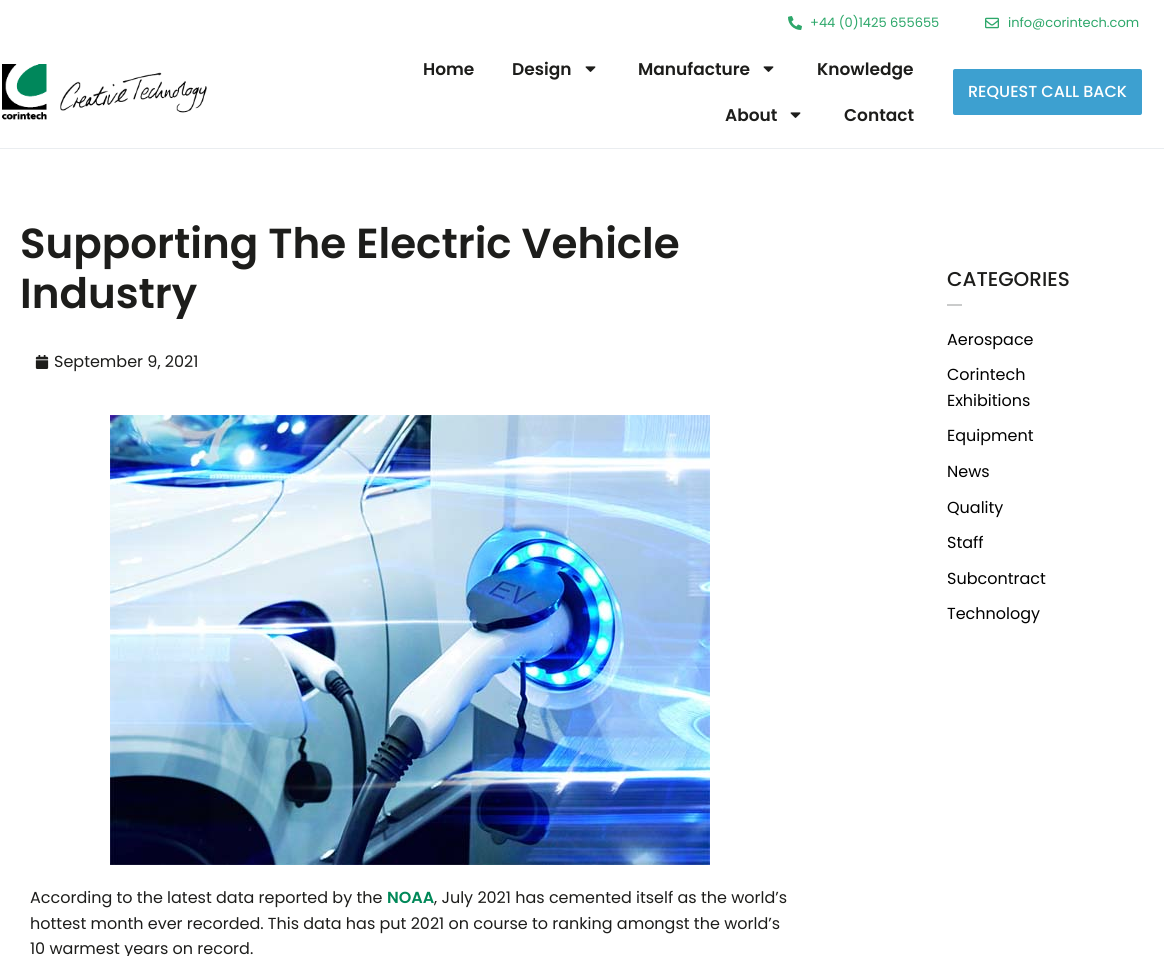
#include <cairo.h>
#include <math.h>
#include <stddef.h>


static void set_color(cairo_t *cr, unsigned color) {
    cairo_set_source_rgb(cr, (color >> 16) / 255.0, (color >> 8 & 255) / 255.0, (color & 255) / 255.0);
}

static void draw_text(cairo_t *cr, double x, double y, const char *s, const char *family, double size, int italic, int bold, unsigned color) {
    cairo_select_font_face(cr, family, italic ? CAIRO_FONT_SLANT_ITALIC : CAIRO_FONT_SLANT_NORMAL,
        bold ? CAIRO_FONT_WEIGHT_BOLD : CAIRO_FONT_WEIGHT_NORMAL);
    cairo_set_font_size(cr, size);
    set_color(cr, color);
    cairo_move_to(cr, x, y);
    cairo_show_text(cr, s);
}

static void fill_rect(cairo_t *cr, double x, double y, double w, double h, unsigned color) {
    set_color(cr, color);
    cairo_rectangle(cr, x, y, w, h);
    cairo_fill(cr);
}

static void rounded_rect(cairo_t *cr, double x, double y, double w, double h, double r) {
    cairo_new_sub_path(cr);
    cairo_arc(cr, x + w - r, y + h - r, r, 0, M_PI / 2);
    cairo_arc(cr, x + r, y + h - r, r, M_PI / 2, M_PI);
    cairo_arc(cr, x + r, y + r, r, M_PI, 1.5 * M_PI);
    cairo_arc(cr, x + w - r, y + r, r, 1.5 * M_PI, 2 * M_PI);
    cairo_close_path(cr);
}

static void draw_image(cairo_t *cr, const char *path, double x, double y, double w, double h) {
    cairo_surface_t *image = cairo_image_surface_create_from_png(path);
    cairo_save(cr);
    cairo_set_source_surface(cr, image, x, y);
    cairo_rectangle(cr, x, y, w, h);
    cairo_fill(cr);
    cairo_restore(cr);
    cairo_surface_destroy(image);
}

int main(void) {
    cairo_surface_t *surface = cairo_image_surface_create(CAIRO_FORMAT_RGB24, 1164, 956);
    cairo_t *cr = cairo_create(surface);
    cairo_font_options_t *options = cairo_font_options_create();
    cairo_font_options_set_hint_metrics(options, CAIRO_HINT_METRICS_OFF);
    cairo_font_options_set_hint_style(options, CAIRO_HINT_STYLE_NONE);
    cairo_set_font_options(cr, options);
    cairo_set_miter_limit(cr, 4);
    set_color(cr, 0xFFFFFF);
    cairo_paint(cr);
    draw_image(cr, "assets/img1.png", 788, 16, 14, 14);
    draw_text(cr, 810, 27, "+44 (0)1425 655655", "Poppins", 13, 0, 0, 0x2DA76A);
    draw_image(cr, "assets/img2.png", 985, 17, 14, 12);
    draw_text(cr, 1008, 27, "info@corintech.com", "Poppins", 13, 0, 0, 0x2DA76A);
    fill_rect(cr, 0, 148, 1164, 1, 0xEAEDF0);
    draw_image(cr, "assets/img3.png", 2, 64, 205, 56);
    draw_text(cr, 423, 75, "Home", "Poppins SemiBold", 17, 0, 0, 0x1D1D1B);
    draw_text(cr, 512, 75, "Design", "Poppins SemiBold", 17, 0, 0, 0x1D1D1B);
    draw_image(cr, "assets/img4.png", 585, 66, 11, 6);
    draw_text(cr, 638, 75, "Manufacture", "Poppins SemiBold", 17, 0, 0, 0x1D1D1B);
    draw_image(cr, "assets/img4.png", 763, 66, 11, 6);
    draw_text(cr, 817, 75, "Knowledge", "Poppins SemiBold", 17, 0, 0, 0x1D1D1B);
    draw_text(cr, 725, 121, "About", "Poppins SemiBold", 17, 0, 0, 0x1D1D1B);
    draw_image(cr, "assets/img4.png", 790, 112, 11, 6);
    draw_text(cr, 844, 121, "Contact", "Poppins SemiBold", 17, 0, 0, 0x1D1D1B);
    set_color(cr, 0x3DA0D0);
    rounded_rect(cr, 953, 69, 189, 46, 2);
    cairo_fill(cr);
    draw_text(cr, 968, 97, "REQUEST CALL BACK", "Poppins Medium", 16, 0, 0, 0xFFFFFF);
    draw_text(cr, 20, 258, "Supporting The Electric Vehicle", "Poppins SemiBold", 42, 0, 0, 0x1D1D1B);
    draw_text(cr, 20, 308, "Industry", "Poppins SemiBold", 42, 0, 0, 0x1D1D1B);
    draw_image(cr, "assets/img5.png", 35, 355, 14, 14);
    draw_text(cr, 54, 367, "September 9, 2021", "Poppins", 16, 0, 0, 0x1D1D1B);
    draw_image(cr, "assets/img6.png", 110, 415, 600, 450);
    draw_text(cr, 30, 903, "According to the latest data reported by the", "Poppins", 16, 0, 0, 0x1D1D1B);
    draw_text(cr, 387, 903, "NOAA", "Poppins SemiBold", 16, 0, 0, 0x008858);
    draw_text(cr, 434, 903, ", July 2021 has cemented itself as the world’s", "Poppins", 16, 0, 0, 0x1D1D1B);
    draw_text(cr, 30, 929, "hottest month ever recorded. This data has put 2021 on course to ranking amongst the world’s", "Poppins", 16, 0, 0, 0x1D1D1B);
    draw_text(cr, 30, 954, "10 warmest years on record.", "Poppins", 16, 0, 0, 0x1D1D1B);
    draw_text(cr, 947, 286, "CATEGORIES", "Poppins Medium", 20, 0, 0, 0x1D1D1B);
    fill_rect(cr, 947, 304, 15, 2, 0xCACBCB);
    draw_text(cr, 947, 345, "Aerospace", "Poppins", 16, 0, 0, 0x000000);
    draw_text(cr, 947, 380, "Corintech", "Poppins", 16, 0, 0, 0x000000);
    draw_text(cr, 947, 406, "Exhibitions", "Poppins", 16, 0, 0, 0x000000);
    draw_text(cr, 947, 441, "Equipment", "Poppins", 16, 0, 0, 0x000000);
    draw_text(cr, 947, 477, "News", "Poppins", 16, 0, 0, 0x000000);
    draw_text(cr, 947, 513, "Quality", "Poppins", 16, 0, 0, 0x000000);
    draw_text(cr, 947, 548, "Staff", "Poppins", 16, 0, 0, 0x000000);
    draw_text(cr, 947, 584, "Subcontract", "Poppins", 16, 0, 0, 0x000000);
    draw_text(cr, 947, 619, "Technology", "Poppins", 16, 0, 0, 0x000000);
    cairo_surface_write_to_png(surface, "output.png");
    cairo_font_options_destroy(options);
    cairo_destroy(cr);
    cairo_surface_destroy(surface);
    return 0;
}
